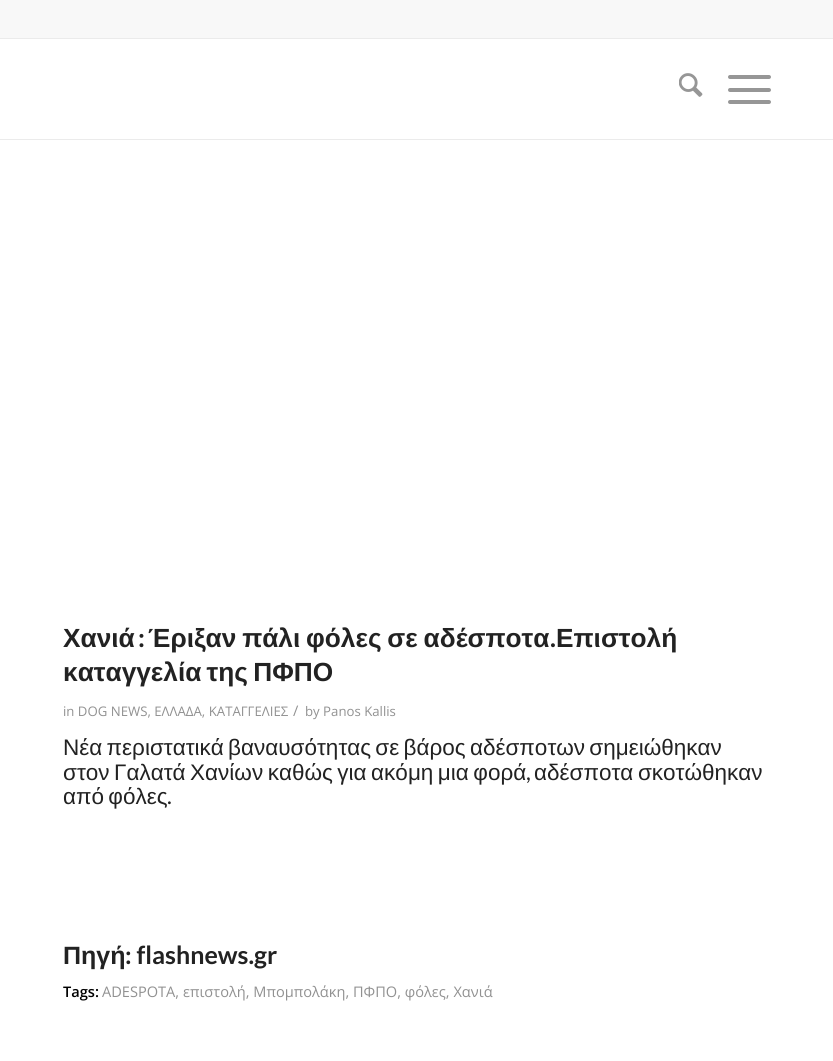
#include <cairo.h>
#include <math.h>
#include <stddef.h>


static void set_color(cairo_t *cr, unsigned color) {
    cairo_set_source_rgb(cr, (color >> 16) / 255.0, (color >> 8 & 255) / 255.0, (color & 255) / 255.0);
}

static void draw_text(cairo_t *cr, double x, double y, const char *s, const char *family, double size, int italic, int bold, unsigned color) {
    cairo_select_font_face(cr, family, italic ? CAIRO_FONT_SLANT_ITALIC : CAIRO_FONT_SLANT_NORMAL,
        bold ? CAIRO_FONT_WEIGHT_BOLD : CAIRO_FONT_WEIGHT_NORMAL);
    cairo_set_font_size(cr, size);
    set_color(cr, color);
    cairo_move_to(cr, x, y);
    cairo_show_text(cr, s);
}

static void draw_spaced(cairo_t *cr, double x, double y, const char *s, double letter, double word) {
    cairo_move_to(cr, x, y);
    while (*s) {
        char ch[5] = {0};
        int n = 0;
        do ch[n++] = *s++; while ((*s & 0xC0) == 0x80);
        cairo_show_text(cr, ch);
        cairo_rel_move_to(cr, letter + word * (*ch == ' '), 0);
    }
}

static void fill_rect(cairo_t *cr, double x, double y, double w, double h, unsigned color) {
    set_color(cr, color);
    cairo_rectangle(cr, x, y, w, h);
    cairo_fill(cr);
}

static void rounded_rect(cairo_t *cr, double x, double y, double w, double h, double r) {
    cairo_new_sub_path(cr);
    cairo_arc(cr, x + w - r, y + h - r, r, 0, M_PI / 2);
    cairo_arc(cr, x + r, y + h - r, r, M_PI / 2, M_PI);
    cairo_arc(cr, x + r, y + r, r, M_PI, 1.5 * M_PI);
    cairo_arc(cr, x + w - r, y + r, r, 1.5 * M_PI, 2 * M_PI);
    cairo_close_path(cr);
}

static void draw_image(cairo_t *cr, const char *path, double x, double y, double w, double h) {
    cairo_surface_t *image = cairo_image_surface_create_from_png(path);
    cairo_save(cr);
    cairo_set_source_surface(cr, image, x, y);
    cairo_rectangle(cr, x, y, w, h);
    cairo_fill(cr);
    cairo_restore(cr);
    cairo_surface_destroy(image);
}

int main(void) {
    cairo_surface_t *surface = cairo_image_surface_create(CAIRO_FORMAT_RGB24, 833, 1061);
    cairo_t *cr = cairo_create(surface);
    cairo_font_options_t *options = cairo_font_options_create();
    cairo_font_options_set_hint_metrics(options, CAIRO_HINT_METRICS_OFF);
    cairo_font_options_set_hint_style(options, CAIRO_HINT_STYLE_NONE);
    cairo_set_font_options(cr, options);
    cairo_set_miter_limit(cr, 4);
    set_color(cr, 0xFFFFFF);
    cairo_paint(cr);
    fill_rect(cr, 0, 0, 833, 38, 0xF8F8F8);
    fill_rect(cr, 0, 38, 833, 1, 0xEBEBEB);
    fill_rect(cr, 0, 139, 833, 1, 0xEBEBEB);
    draw_image(cr, "assets/img1.png", 679, 73, 24, 24);
    set_color(cr, 0x969696);
    rounded_rect(cr, 728, 88, 43, 4, 2);
    cairo_fill(cr);
    rounded_rect(cr, 728, 75, 43, 4, 2);
    cairo_fill(cr);
    rounded_rect(cr, 728, 100, 43, 4, 2);
    cairo_fill(cr);
    draw_text(cr, 63, 647, "Χανιά", "Liberation Sans", 26.25, 0, 1, 0x222222);
    draw_text(cr, 138, 647, ":", "Lato", 26.25, 0, 1, 0x222222);
    cairo_select_font_face(cr, "Liberation Sans", CAIRO_FONT_SLANT_NORMAL, CAIRO_FONT_WEIGHT_BOLD);
    draw_spaced(cr, 148, 647, "Έριξαν πάλι φόλες σε αδέσποτα", 0, -1.5);
    draw_text(cr, 550, 647, ".", "Lato", 26.25, 0, 1, 0x222222);
    draw_text(cr, 556, 647, "Επιστολή", "Liberation Sans", 26.25, 0, 1, 0x222222);
    draw_spaced(cr, 63, 681, "καταγγελία της ΠΦΠΟ", 0, -2);
    draw_text(cr, 63, 716, "in DOG NEWS, ΕΛΛΑΔΑ, ΚΑΤΑΓΓΕΛΙΕΣ", "Open Sans", 13.2, 0, 0, 0x919191);
    draw_text(cr, 293, 716, "/", "Open Sans", 14.6, 0, 0, 0x919191);
    draw_text(cr, 305, 716, "by Panos Κallis", "Open Sans", 13.2, 0, 0, 0x919191);
    cairo_select_font_face(cr, "Liberation Sans", CAIRO_FONT_SLANT_NORMAL, CAIRO_FONT_WEIGHT_NORMAL);
    cairo_set_font_size(cr, 22.5);
    set_color(cr, 0x222222);
    draw_spaced(cr, 63, 755, "Νέα περιστατικά βαναυσότητας σε βάρος αδέσποτων σημειώθηκαν", 0, -2);
    draw_spaced(cr, 63, 780, "στον Γαλατά Χανίων καθώς για ακόμη μια φορά", 0, -1.75);
    draw_text(cr, 526, 780, ",", "Lato", 22.5, 0, 0, 0x222222);
    cairo_select_font_face(cr, "Liberation Sans", CAIRO_FONT_SLANT_NORMAL, CAIRO_FONT_WEIGHT_NORMAL);
    draw_spaced(cr, 534, 780, "αδέσποτα σκοτώθηκαν", 0, -1.75);
    draw_spaced(cr, 63, 804, "από φόλες", 0, -2);
    draw_text(cr, 167, 804, ".", "Lato", 22.5, 0, 0, 0x222222);
    draw_text(cr, 63, 964, "Πηγή", "Liberation Sans", 25, 0, 1, 0x222222);
    draw_text(cr, 125, 964, ": flashnews.gr", "Lato", 25, 0, 1, 0x222222);
    draw_text(cr, 63, 997, "Tags:", "Open Sans SemiBold", 14.6, 0, 0, 0x000000);
    draw_text(cr, 102, 997, "ADESPOTA, επιστολή, Μπομπολάκη, ΠΦΠΟ, φόλες, Χανιά", "Open Sans", 14.6, 0, 0, 0x919191);
    cairo_surface_write_to_png(surface, "output.png");
    cairo_font_options_destroy(options);
    cairo_destroy(cr);
    cairo_surface_destroy(surface);
    return 0;
}
